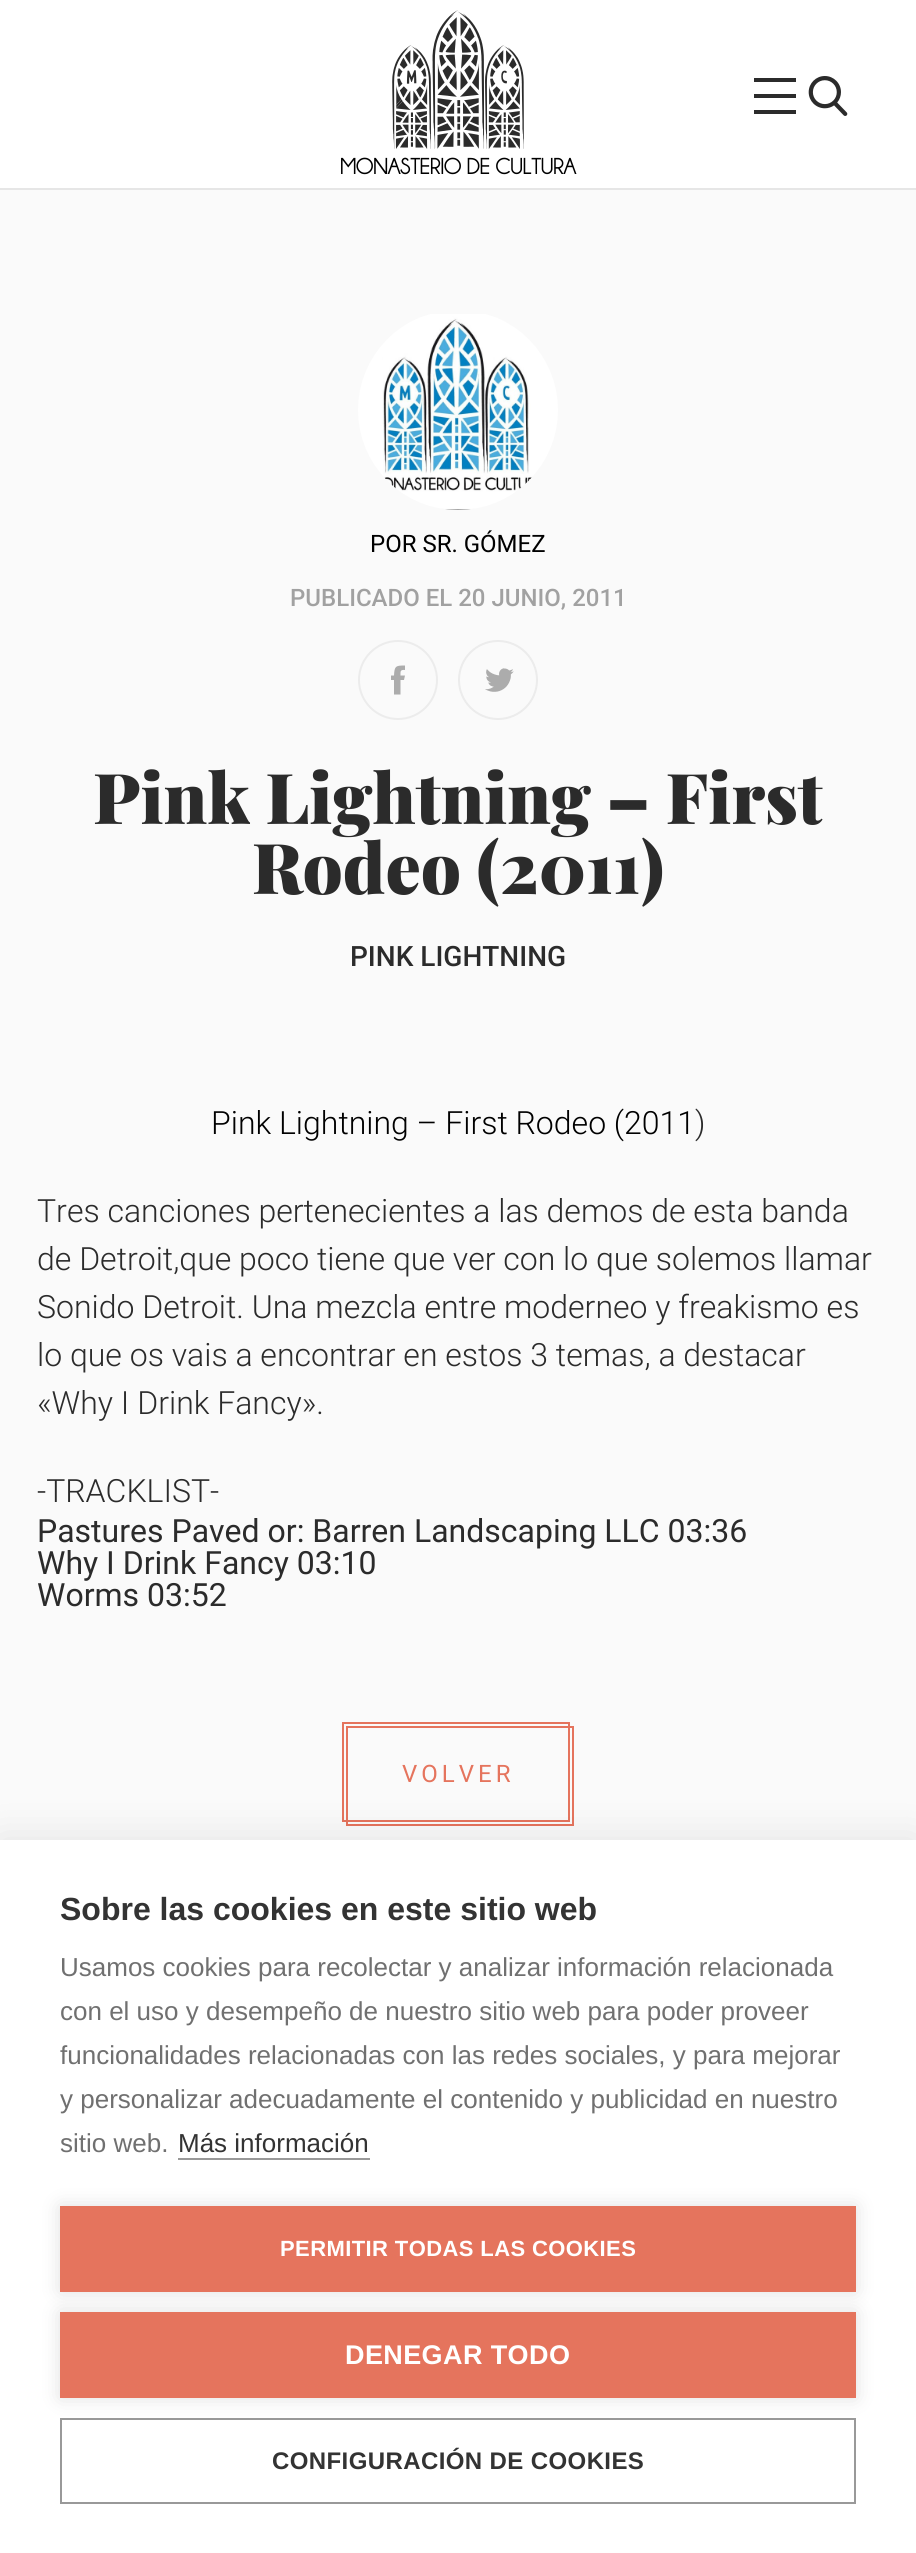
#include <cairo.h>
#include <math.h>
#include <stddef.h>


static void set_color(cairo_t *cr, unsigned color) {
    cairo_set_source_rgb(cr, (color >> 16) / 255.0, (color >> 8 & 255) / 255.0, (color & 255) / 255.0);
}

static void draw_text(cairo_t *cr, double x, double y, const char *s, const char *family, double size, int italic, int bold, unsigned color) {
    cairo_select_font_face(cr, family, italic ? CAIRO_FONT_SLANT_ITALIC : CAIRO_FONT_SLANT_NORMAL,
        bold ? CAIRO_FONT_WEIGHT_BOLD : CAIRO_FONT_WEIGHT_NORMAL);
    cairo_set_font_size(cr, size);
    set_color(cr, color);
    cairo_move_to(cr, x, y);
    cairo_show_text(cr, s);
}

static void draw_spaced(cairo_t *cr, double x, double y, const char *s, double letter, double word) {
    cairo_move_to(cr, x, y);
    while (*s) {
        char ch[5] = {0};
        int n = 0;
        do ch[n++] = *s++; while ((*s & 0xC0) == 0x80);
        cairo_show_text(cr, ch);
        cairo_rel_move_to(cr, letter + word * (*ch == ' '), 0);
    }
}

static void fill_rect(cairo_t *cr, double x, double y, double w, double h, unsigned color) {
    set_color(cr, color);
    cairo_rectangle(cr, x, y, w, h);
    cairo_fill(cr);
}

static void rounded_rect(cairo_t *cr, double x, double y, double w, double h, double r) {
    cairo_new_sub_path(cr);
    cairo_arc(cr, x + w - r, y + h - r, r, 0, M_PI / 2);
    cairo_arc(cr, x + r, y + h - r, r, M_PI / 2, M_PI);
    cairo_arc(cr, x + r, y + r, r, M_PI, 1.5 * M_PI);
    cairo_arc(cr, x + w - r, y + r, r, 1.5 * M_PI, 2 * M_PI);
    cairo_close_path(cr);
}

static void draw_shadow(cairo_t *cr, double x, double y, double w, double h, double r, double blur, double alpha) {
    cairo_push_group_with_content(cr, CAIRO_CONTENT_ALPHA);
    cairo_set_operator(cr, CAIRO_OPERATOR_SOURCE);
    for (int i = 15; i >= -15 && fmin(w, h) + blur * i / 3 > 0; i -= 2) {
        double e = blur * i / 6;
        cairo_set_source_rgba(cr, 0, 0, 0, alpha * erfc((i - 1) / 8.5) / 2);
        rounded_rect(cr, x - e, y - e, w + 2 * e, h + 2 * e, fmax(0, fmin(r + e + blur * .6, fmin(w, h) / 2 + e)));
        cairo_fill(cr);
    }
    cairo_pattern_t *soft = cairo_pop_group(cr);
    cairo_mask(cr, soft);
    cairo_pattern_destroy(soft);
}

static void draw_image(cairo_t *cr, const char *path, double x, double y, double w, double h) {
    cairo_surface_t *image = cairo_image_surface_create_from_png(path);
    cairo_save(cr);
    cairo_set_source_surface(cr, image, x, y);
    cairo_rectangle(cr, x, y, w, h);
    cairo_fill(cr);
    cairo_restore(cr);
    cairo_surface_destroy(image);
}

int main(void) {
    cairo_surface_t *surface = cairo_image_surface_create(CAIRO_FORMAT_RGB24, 916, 2553);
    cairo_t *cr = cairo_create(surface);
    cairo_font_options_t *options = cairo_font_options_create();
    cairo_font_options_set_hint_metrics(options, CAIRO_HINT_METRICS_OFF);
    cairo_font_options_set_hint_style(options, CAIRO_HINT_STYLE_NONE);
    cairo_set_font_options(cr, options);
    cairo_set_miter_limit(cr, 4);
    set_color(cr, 0xFFFFFF);
    cairo_paint(cr);
    fill_rect(cr, 0, 188, 916, 2, 0xE6E6E6);
    draw_image(cr, "assets/img1.png", 392, 10, 132, 139);
    fill_rect(cr, 754, 94, 42, 4, 0x2B2B2B);
    fill_rect(cr, 754, 78, 42, 4, 0x2B2B2B);
    fill_rect(cr, 754, 110, 42, 4, 0x2B2B2B);
    draw_image(cr, "assets/img2.png", 808, 76, 40, 40);
    draw_text(cr, 340, 174, "MONASTERIO DE CULTURA", "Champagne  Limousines", 22.4, 0, 1, 0x000000);
    fill_rect(cr, 0, 190, 916, 1650, 0xFAFAFA);
    draw_image(cr, "assets/img3.png", 358, 314, 200, 196);
    draw_text(cr, 370, 552, "POR SR. GÓMEZ", "Roboto", 24, 0, 0, 0x000000);
    draw_text(cr, 290, 606, "PUBLICADO EL 20 JUNIO, 2011", "Roboto Medium", 24, 0, 0, 0xA1A1A1);
    cairo_new_path(cr);
    cairo_arc(cr, 398, 680, 39, 0, 2 * M_PI);
    set_color(cr, 0xECECEC);
    cairo_stroke(cr);
    set_color(cr, 0xACACAC);
    cairo_set_fill_rule(cr, CAIRO_FILL_RULE_EVEN_ODD);
    cairo_new_path(cr);
    cairo_move_to(cr, 405, 665.5);
    cairo_line_to(cr, 405, 670);
    cairo_curve_to(cr, 400, 669.5, 400.5, 671.5, 400.5, 675.5);
    cairo_line_to(cr, 405, 675.5);
    cairo_line_to(cr, 404, 680);
    cairo_line_to(cr, 400.5, 680);
    cairo_line_to(cr, 400.5, 694.5);
    cairo_line_to(cr, 394, 694.5);
    cairo_line_to(cr, 394, 680);
    cairo_line_to(cr, 391, 680);
    cairo_line_to(cr, 391, 675.5);
    cairo_line_to(cr, 394, 675.5);
    cairo_curve_to(cr, 394.5, 666, 395.5, 665.5, 405, 665.5);
    cairo_close_path(cr);
    cairo_fill(cr);
    draw_image(cr, "assets/img4.png", 458, 640, 80, 80);
    draw_text(cr, 93, 824, "Pink Lightning – First", "Playfair Display Black", 70, 0, 0, 0x2B2B2B);
    draw_text(cr, 252, 894, "Rodeo (2011)", "Playfair Display Black", 70, 0, 0, 0x2B2B2B);
    draw_text(cr, 350, 966, "PINK LIGHTNING", "Roboto Medium", 28, 0, 0, 0x2B2B2B);
    draw_text(cr, 211, 1134, "Pink Lightning – First Rodeo (2011", "Roboto Light", 32, 0, 0, 0x000000);
    draw_text(cr, 695, 1134, ")", "Roboto Light", 32, 0, 0, 0x2B2B2B);
    draw_text(cr, 37, 1222, "Tres canciones pertenecientes a las demos de esta banda", "Roboto Light", 32, 0, 0, 0x2B2B2B);
    draw_text(cr, 37, 1270, "de Detroit,que poco tiene que ver con lo que solemos llamar", "Roboto Light", 32, 0, 0, 0x2B2B2B);
    draw_text(cr, 37, 1318, "Sonido Detroit. Una mezcla entre moderneo y freakismo es", "Roboto Light", 32, 0, 0, 0x2B2B2B);
    draw_text(cr, 37, 1366, "lo que os vais a encontrar en estos 3 temas, a destacar", "Roboto Light", 32, 0, 0, 0x2B2B2B);
    draw_text(cr, 37, 1414, "«Why I Drink Fancy».", "Roboto Light", 32, 0, 0, 0x2B2B2B);
    draw_text(cr, 37, 1502, "-TRACKLIST-", "Roboto Light", 32, 0, 0, 0x2B2B2B);
    draw_text(cr, 37, 1542, "Pastures Paved or: Barren Landscaping LLC 03:36", "Roboto", 32, 0, 0, 0x2B2B2B);
    draw_text(cr, 37, 1574, "Why I Drink Fancy 03:10", "Roboto", 32, 0, 0, 0x2B2B2B);
    draw_text(cr, 37, 1606, "Worms 03:52", "Roboto", 32, 0, 0, 0x2B2B2B);
    cairo_rectangle(cr, 347, 1727, 226, 98);
    set_color(cr, 0xE5745D);
    cairo_stroke(cr);
    cairo_rectangle(cr, 343, 1723, 226, 98);
    cairo_stroke(cr);
    cairo_set_font_size(cr, 24);
    draw_spaced(cr, 402, 1782, "VOLVER", 4, 0);
    set_color(cr, 0x000000);
    draw_shadow(cr, 0, 1840, 916, 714, 0, 20, 0.1);
    fill_rect(cr, 0, 1840, 916, 713, 0xFFFFFF);
    draw_text(cr, 60, 1920, "Sobre las cookies en este sitio web", "Liberation Sans", 32, 0, 1, 0x333333);
    draw_text(cr, 60, 1976, "Usamos cookies para recolectar y analizar información relacionada", "Liberation Sans", 26, 0, 0, 0x707070);
    draw_text(cr, 60, 2020, "con el uso y desempeño de nuestro sitio web para poder proveer", "Liberation Sans", 26, 0, 0, 0x707070);
    draw_text(cr, 60, 2064, "funcionalidades relacionadas con las redes sociales, y para mejorar", "Liberation Sans", 26, 0, 0, 0x707070);
    draw_text(cr, 60, 2108, "y personalizar adecuadamente el contenido y publicidad en nuestro", "Liberation Sans", 26, 0, 0, 0x707070);
    draw_text(cr, 60, 2152, "sitio web.", "Liberation Sans", 26, 0, 0, 0x707070);
    draw_text(cr, 178, 2152, "Más información", "Liberation Sans", 26, 0, 0, 0x333333);
    fill_rect(cr, 178, 2158, 192, 2, 0x999999);
    set_color(cr, 0x000000);
    draw_shadow(cr, 60, 2206, 796, 86, 0, 10, 0.12);
    fill_rect(cr, 60, 2206, 796, 86, 0xE5745D);
    cairo_select_font_face(cr, "Liberation Sans", CAIRO_FONT_SLANT_NORMAL, CAIRO_FONT_WEIGHT_BOLD);
    cairo_set_font_size(cr, 22);
    set_color(cr, 0xFFFFFF);
    draw_spaced(cr, 280, 2256, "PERMITIR TODAS LAS COOKIES", 0.4, 0);
    set_color(cr, 0x000000);
    draw_shadow(cr, 60, 2312, 796, 86, 0, 10, 0.12);
    fill_rect(cr, 60, 2312, 796, 86, 0xE5745D);
    cairo_set_font_size(cr, 27);
    set_color(cr, 0xFFFFFF);
    draw_spaced(cr, 345, 2364, "DENEGAR TODO", 0.4, 0);
    cairo_rectangle(cr, 61, 2419, 794, 84);
    set_color(cr, 0x999999);
    cairo_stroke(cr);
    cairo_set_font_size(cr, 24);
    set_color(cr, 0x333333);
    draw_spaced(cr, 272, 2469, "CONFIGURACIÓN DE COOKIES", 0.4, 0);
    cairo_surface_write_to_png(surface, "output.png");
    cairo_font_options_destroy(options);
    cairo_destroy(cr);
    cairo_surface_destroy(surface);
    return 0;
}
